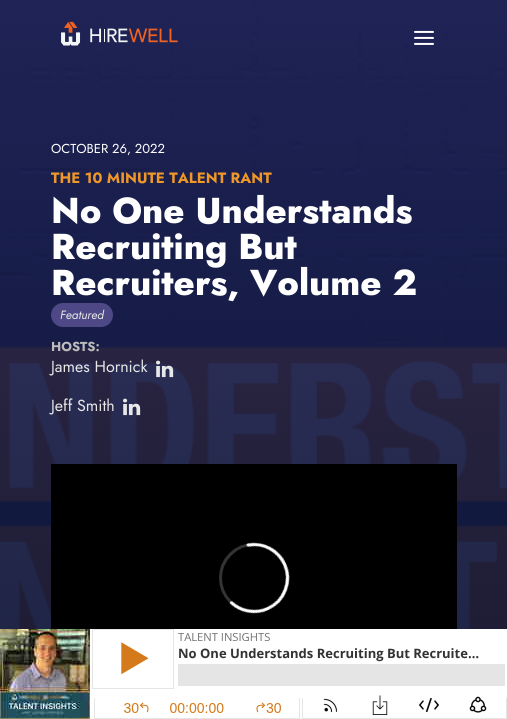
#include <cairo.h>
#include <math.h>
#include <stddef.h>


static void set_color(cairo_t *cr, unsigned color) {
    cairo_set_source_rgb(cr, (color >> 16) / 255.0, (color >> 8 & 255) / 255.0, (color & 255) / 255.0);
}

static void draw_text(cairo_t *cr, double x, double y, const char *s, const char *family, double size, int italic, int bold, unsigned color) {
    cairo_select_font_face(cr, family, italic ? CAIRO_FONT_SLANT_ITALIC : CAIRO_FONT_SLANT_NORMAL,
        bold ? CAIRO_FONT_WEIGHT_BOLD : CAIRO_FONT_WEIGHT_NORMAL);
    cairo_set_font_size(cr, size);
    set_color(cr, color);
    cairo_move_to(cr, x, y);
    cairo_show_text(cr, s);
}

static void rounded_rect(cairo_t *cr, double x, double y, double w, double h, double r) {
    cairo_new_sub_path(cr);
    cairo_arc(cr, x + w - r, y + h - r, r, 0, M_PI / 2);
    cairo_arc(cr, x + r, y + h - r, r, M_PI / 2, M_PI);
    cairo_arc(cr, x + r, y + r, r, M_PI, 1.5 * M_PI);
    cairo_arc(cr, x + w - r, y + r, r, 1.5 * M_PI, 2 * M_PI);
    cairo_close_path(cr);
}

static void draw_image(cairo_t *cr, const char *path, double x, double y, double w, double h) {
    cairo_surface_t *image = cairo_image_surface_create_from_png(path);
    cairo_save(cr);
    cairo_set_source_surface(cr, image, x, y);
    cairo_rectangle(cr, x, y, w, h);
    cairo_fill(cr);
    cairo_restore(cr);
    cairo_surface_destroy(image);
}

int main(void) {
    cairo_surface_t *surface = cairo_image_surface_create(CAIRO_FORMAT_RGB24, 507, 719);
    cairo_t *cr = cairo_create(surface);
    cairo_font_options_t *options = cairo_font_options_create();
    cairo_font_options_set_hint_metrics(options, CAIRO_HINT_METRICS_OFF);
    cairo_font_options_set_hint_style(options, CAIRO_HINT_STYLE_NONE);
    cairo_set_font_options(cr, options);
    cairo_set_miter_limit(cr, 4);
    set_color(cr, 0xFFFFFF);
    cairo_paint(cr);
    draw_image(cr, "assets/img1.png", 0, 0, 507, 629);
    draw_image(cr, "assets/img2.png", 61, 21, 117, 25);
    draw_image(cr, "assets/img3.png", 414, 30, 20, 15);
    draw_text(cr, 51, 153, "OCTOBER 26, 2022", "Jost", 13, 0, 0, 0xFFFFFF);
    draw_text(cr, 51, 183, "THE 10 MINUTE TALENT RANT", "Jost", 15, 0, 1, 0xEF9829);
    draw_text(cr, 51, 223, "No One Understands", "Jost ExtraBold", 36, 0, 0, 0xFFFFFF);
    draw_text(cr, 51, 259, "Recruiting But", "Jost ExtraBold", 36, 0, 0, 0xFFFFFF);
    draw_text(cr, 51, 295, "Recruiters, Volume 2", "Jost ExtraBold", 36, 0, 0, 0xFFFFFF);
    set_color(cr, 0x4F4886);
    rounded_rect(cr, 51, 303, 62, 24, 12);
    cairo_fill(cr);
    draw_text(cr, 60, 319, "Featured", "Jost", 12, 1, 0, 0xE8E8E8);
    draw_text(cr, 51, 351, "HOSTS:", "Jost", 13, 0, 1, 0xBCBCBC);
    draw_text(cr, 51, 372, "James Hornick", "Jost", 16, 0, 0, 0xE8E8E8);
    draw_image(cr, "assets/img4.png", 156, 360, 18, 18);
    draw_text(cr, 51, 411, "Jeff Smith", "Jost", 16, 0, 0, 0xE8E8E8);
    draw_image(cr, "assets/img5.png", 123, 398, 18, 18);
    draw_image(cr, "assets/img6.png", 51, 464, 406, 165);
    draw_image(cr, "assets/img7.png", 0, 629, 507, 90);
    cairo_surface_write_to_png(surface, "output.png");
    cairo_font_options_destroy(options);
    cairo_destroy(cr);
    cairo_surface_destroy(surface);
    return 0;
}
